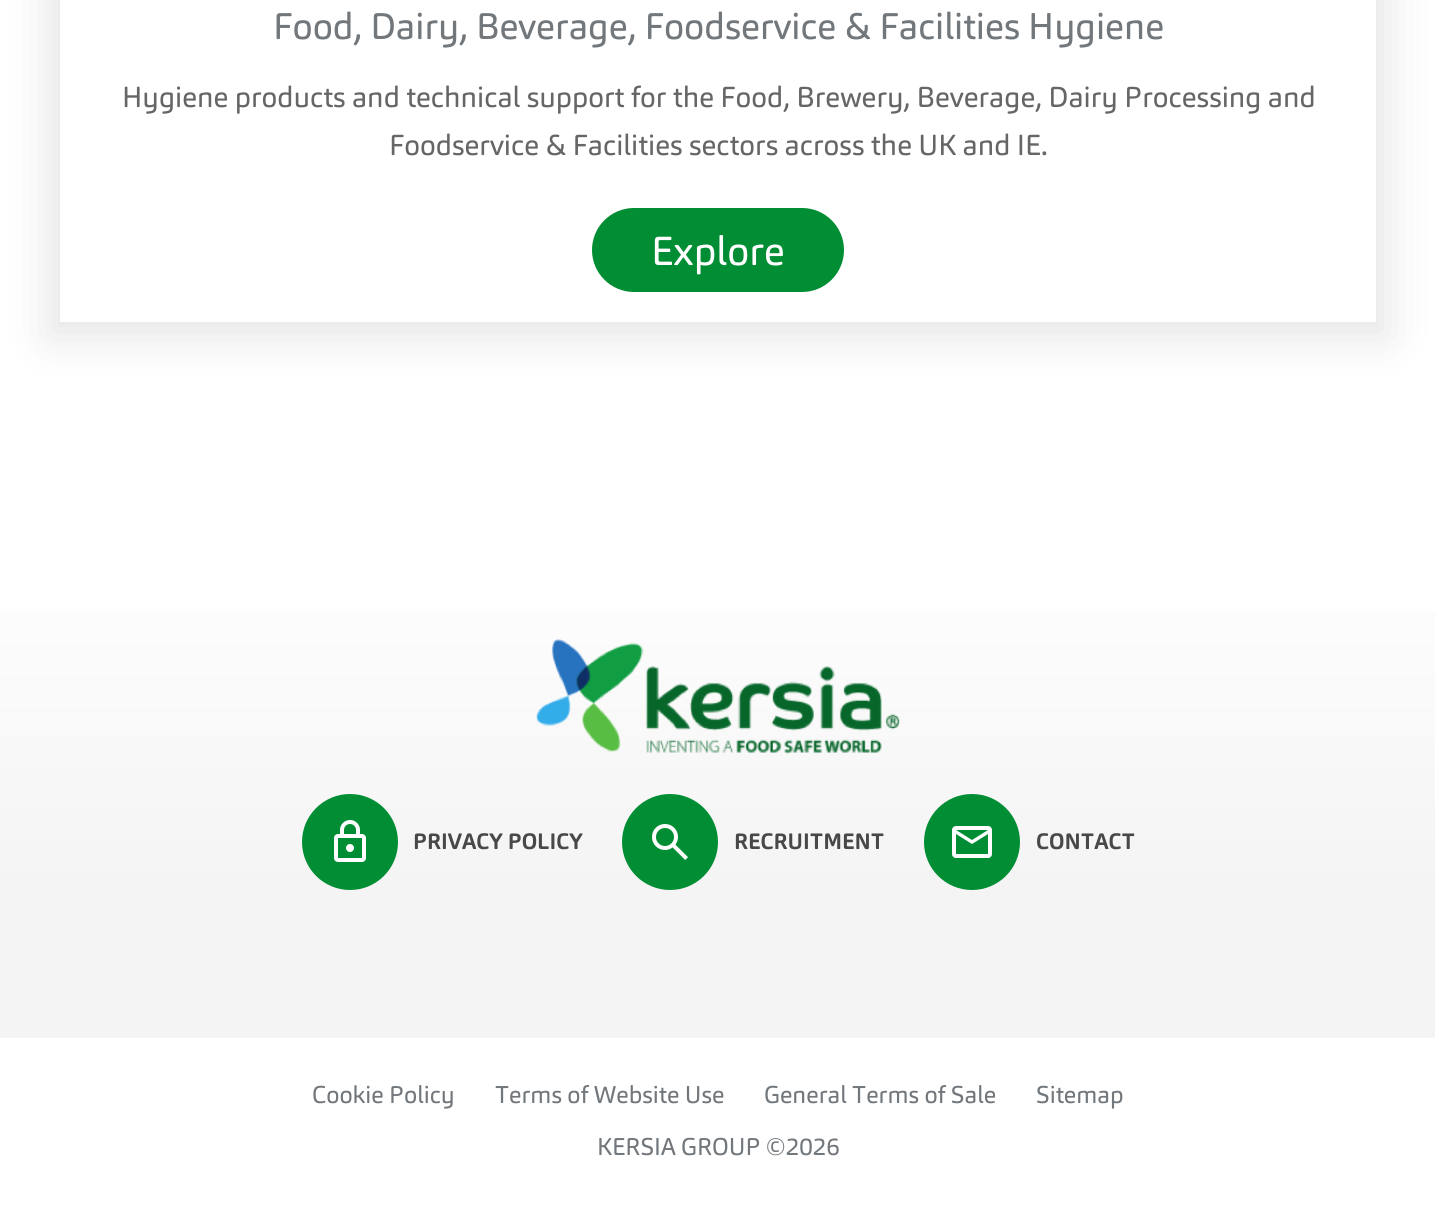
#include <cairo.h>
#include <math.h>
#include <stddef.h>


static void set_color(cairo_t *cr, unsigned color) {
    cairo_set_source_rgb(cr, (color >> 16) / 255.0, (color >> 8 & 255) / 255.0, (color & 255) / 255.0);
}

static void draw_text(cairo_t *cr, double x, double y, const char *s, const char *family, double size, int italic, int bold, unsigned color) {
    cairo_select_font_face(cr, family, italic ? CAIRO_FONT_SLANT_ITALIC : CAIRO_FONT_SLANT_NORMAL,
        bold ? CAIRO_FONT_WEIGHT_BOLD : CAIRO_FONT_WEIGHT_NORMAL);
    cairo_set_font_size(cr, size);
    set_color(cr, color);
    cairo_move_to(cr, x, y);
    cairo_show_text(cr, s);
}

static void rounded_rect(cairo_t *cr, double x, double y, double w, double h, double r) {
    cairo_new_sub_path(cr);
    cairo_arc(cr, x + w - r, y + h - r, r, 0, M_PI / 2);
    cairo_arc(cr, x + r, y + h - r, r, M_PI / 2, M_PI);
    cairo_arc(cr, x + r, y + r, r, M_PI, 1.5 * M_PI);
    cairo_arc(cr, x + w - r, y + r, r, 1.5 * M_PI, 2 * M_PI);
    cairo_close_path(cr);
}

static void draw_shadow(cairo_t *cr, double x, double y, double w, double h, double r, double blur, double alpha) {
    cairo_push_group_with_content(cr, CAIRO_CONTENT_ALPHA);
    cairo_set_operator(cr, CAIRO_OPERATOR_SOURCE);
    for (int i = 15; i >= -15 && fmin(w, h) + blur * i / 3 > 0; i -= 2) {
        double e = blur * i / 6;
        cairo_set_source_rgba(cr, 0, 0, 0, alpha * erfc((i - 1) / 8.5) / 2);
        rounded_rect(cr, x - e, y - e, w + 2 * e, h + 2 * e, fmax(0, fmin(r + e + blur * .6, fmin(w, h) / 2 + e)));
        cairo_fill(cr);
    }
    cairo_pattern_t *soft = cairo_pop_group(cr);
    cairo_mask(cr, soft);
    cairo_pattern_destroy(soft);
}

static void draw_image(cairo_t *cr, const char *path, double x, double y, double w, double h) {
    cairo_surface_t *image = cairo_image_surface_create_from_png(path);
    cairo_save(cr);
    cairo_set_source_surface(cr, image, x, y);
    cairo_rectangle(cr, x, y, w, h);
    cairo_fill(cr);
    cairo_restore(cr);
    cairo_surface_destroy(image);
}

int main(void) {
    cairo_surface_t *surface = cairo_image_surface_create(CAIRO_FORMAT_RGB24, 1435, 1211);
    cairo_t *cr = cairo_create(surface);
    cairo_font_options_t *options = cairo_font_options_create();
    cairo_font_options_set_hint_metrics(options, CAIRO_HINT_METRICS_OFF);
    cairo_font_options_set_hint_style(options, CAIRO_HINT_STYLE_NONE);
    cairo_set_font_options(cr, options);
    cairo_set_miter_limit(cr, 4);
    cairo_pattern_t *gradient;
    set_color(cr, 0xFFFFFF);
    cairo_paint(cr);
    cairo_save(cr);
    cairo_set_fill_rule(cr, CAIRO_FILL_RULE_EVEN_ODD);
    cairo_new_path(cr);
    cairo_move_to(cr, 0, 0);
    cairo_line_to(cr, 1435, 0);
    cairo_line_to(cr, 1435, 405);
    cairo_line_to(cr, 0, 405);
    cairo_close_path(cr);
    cairo_move_to(cr, 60, -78);
    cairo_line_to(cr, 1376, -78);
    cairo_line_to(cr, 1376, 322);
    cairo_line_to(cr, 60, 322);
    cairo_close_path(cr);
    cairo_clip(cr);
    set_color(cr, 0x000000);
    draw_shadow(cr, 48, -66, 1340, 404, 0, 22, 0.1);
    cairo_restore(cr);
    draw_text(cr, 273, 39, "Food, Dairy, Beverage, Foodservice & Facilities Hygiene", "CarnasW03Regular", 36.65, 0, 0, 0x72777C);
    draw_text(cr, 122, 107, "Hygiene products and technical support for the Food, Brewery, Beverage, Dairy Processing and", "CarnasW03Regular", 28.65, 0, 0, 0x666666);
    draw_text(cr, 389, 155, "Foodservice & Facilities sectors across the UK and IE.", "CarnasW03Regular", 28.65, 0, 0, 0x666666);
    set_color(cr, 0x008D33);
    rounded_rect(cr, 592, 208, 252, 84, 42);
    cairo_fill(cr);
    draw_text(cr, 651, 265, "Explore", "CarnasW03Regular", 40, 0, 0, 0xFFFFFF);
    gradient = cairo_pattern_create_linear(718, 530, 718, 1038);
    cairo_pattern_add_color_stop_rgba(gradient, 0, 1, 1, 1, 1);
    cairo_pattern_add_color_stop_rgba(gradient, 0.7, 0.957, 0.957, 0.957, 1);
    cairo_set_source(cr, gradient);
    cairo_pattern_destroy(gradient);
    cairo_rectangle(cr, 0, 611, 1435, 427);
    cairo_fill(cr);
    draw_image(cr, "assets/img1.png", 536, 639, 364, 115);
    set_color(cr, 0x008D33);
    cairo_arc(cr, 350, 842, 48, 0, 2 * M_PI);
    cairo_fill(cr);
    draw_image(cr, "assets/img2.png", 334, 820, 32, 42);
    draw_text(cr, 413, 849, "PRIVACY POLICY", "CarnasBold", 22, 0, 1, 0x484848);
    set_color(cr, 0x008D33);
    cairo_new_path(cr);
    cairo_arc(cr, 670, 842, 48, 0, 2 * M_PI);
    cairo_fill(cr);
    draw_image(cr, "assets/img3.png", 652, 824, 36, 36);
    draw_text(cr, 734, 849, "RECRUITMENT", "CarnasBold", 22, 0, 1, 0x484848);
    set_color(cr, 0x008D33);
    cairo_new_path(cr);
    cairo_arc(cr, 972, 842, 48, 0, 2 * M_PI);
    cairo_fill(cr);
    draw_image(cr, "assets/img4.png", 952, 826, 40, 32);
    draw_text(cr, 1036, 849, "CONTACT", "CarnasBold", 22, 0, 1, 0x484848);
    draw_text(cr, 312, 1103, "Cookie Policy", "CarnasW03Regular", 24, 0, 0, 0x72777C);
    draw_text(cr, 495, 1103, "Terms of Website Use", "CarnasW03Regular", 24, 0, 0, 0x72777C);
    draw_text(cr, 764, 1103, "General Terms of Sale", "CarnasW03Regular", 24, 0, 0, 0x72777C);
    draw_text(cr, 1036, 1103, "Sitemap", "CarnasW03Regular", 24, 0, 0, 0x72777C);
    draw_text(cr, 597, 1155, "KERSIA GROUP ©2026", "CarnasW03Regular", 24, 0, 0, 0x72777C);
    cairo_surface_write_to_png(surface, "output.png");
    cairo_font_options_destroy(options);
    cairo_destroy(cr);
    cairo_surface_destroy(surface);
    return 0;
}
